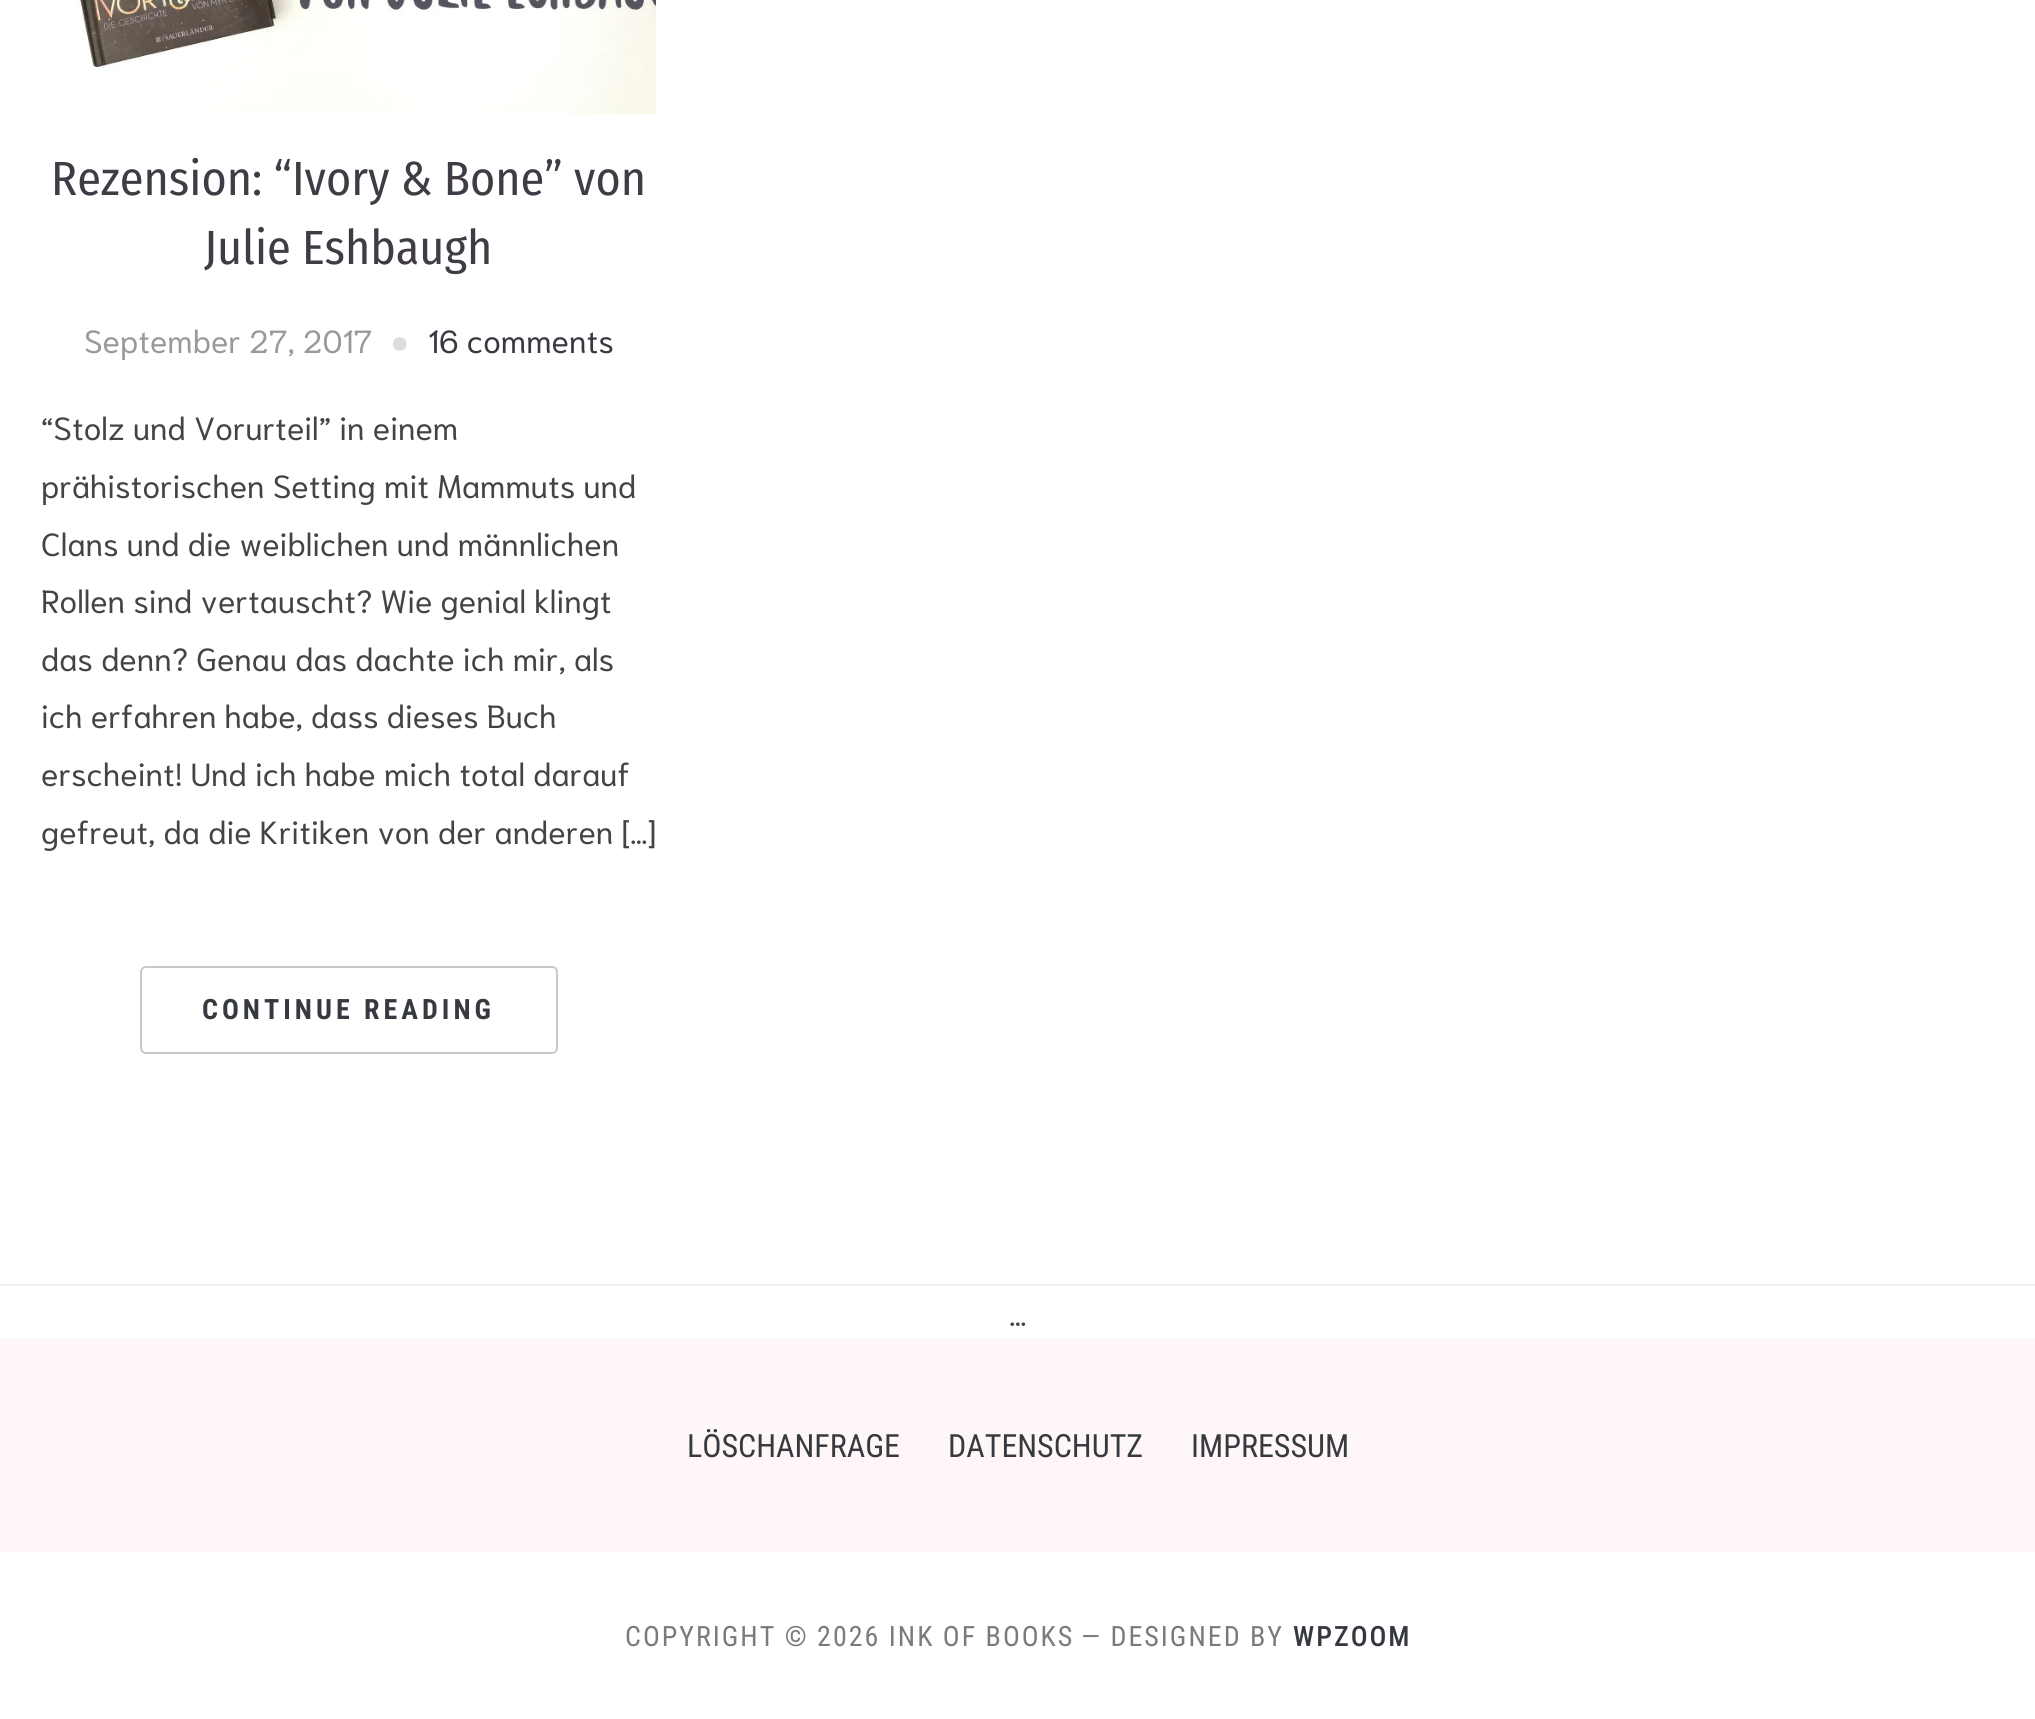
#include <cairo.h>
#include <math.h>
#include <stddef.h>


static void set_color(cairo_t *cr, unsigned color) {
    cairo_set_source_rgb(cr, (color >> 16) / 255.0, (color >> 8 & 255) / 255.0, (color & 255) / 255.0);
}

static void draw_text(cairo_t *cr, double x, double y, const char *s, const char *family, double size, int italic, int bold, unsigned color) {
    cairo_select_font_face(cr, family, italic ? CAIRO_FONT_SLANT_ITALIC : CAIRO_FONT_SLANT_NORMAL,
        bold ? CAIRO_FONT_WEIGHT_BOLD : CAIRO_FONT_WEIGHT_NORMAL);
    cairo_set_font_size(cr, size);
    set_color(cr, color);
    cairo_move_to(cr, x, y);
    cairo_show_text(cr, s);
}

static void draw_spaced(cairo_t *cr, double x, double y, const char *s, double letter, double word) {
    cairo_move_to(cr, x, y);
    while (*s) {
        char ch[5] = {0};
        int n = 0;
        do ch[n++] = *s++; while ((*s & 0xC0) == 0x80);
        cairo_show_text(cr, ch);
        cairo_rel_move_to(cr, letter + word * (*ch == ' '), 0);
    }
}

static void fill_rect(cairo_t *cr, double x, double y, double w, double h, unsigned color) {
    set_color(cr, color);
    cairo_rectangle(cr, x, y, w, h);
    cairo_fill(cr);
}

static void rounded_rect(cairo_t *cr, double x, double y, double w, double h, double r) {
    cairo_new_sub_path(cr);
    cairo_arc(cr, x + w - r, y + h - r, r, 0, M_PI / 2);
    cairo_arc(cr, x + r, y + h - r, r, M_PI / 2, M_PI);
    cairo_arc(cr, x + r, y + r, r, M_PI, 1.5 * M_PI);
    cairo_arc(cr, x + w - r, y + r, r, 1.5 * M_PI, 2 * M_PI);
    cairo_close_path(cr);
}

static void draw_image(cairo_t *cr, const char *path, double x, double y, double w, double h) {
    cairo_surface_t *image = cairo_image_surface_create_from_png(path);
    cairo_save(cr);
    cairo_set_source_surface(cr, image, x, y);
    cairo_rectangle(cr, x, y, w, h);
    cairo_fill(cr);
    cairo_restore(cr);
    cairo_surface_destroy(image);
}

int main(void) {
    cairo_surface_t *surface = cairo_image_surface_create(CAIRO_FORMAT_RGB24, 2035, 1719);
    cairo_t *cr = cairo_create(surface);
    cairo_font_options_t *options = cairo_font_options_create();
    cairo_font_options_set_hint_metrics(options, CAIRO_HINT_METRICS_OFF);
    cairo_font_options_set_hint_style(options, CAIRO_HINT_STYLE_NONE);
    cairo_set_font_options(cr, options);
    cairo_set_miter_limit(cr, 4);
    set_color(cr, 0xFFFFFF);
    cairo_paint(cr);
    draw_image(cr, "assets/img1.png", 77, 0, 579, 114);
    draw_text(cr, 51, 195, "Rezension: “Ivory & Bone” von", "Fira Sans Condensed", 48, 0, 0, 0x403B44);
    draw_text(cr, 204, 264, "Julie Eshbaugh", "Fira Sans Condensed", 48, 0, 0, 0x403B44);
    draw_text(cr, 84, 353, "September 27, 2017", "Niramit", 32, 0, 0, 0x999999);
    draw_text(cr, 390, 353, "●", "Liberation Sans", 32, 0, 0, 0xDBDDDD);
    draw_text(cr, 428, 353, "16 comments", "Niramit", 32, 0, 0, 0x363940);
    draw_text(cr, 41, 440, "“Stolz und Vorurteil” in einem", "Niramit", 32, 0, 0, 0x444444);
    draw_text(cr, 41, 498, "prähistorischen Setting mit Mammuts und", "Niramit", 32, 0, 0, 0x444444);
    draw_text(cr, 41, 556, "Clans und die weiblichen und männlichen", "Niramit", 32, 0, 0, 0x444444);
    draw_text(cr, 41, 613, "Rollen sind vertauscht? Wie genial klingt", "Niramit", 32, 0, 0, 0x444444);
    draw_text(cr, 41, 671, "das denn? Genau das dachte ich mir, als", "Niramit", 32, 0, 0, 0x444444);
    draw_text(cr, 41, 728, "ich erfahren habe, dass dieses Buch", "Niramit", 32, 0, 0, 0x444444);
    draw_text(cr, 41, 786, "erscheint! Und ich habe mich total darauf", "Niramit", 32, 0, 0, 0x444444);
    draw_text(cr, 41, 844, "gefreut, da die Kritiken von der anderen […]", "Niramit", 32, 0, 0, 0x444444);
    rounded_rect(cr, 141, 967, 416, 86, 5);
    set_color(cr, 0xC7C9CF);
    cairo_stroke(cr);
    cairo_select_font_face(cr, "Roboto Condensed", CAIRO_FONT_SLANT_NORMAL, CAIRO_FONT_WEIGHT_BOLD);
    cairo_set_font_size(cr, 28);
    set_color(cr, 0x363940);
    draw_spaced(cr, 202, 1019, "CONTINUE READING", 4, 0);
    fill_rect(cr, 0, 1284, 2035, 2, 0xF0F0F0);
    draw_text(cr, 1009, 1326, "…", "Niramit", 32, 0, 0, 0x444444);
    fill_rect(cr, 0, 1338, 2035, 214, 0xFFF7F7);
    draw_text(cr, 687, 1457, "LÖSCHANFRAGE", "Roboto Condensed", 32, 0, 0, 0x363940);
    draw_text(cr, 948, 1457, "DATENSCHUTZ", "Roboto Condensed", 32, 0, 0, 0x363940);
    draw_text(cr, 1191, 1457, "IMPRESSUM", "Roboto Condensed", 32, 0, 0, 0x363940);
    cairo_set_font_size(cr, 28);
    set_color(cr, 0x7B7B7B);
    draw_spaced(cr, 625, 1646, "COPYRIGHT © 2026 INK OF BOOKS", 2, 0);
    draw_spaced(cr, 1081, 1646, "— DESIGNED BY", 2, 0);
    cairo_select_font_face(cr, "Roboto Condensed Medium", CAIRO_FONT_SLANT_NORMAL, CAIRO_FONT_WEIGHT_NORMAL);
    set_color(cr, 0x363940);
    draw_spaced(cr, 1293, 1646, "WPZOOM", 2, 0);
    cairo_surface_write_to_png(surface, "output.png");
    cairo_font_options_destroy(options);
    cairo_destroy(cr);
    cairo_surface_destroy(surface);
    return 0;
}
